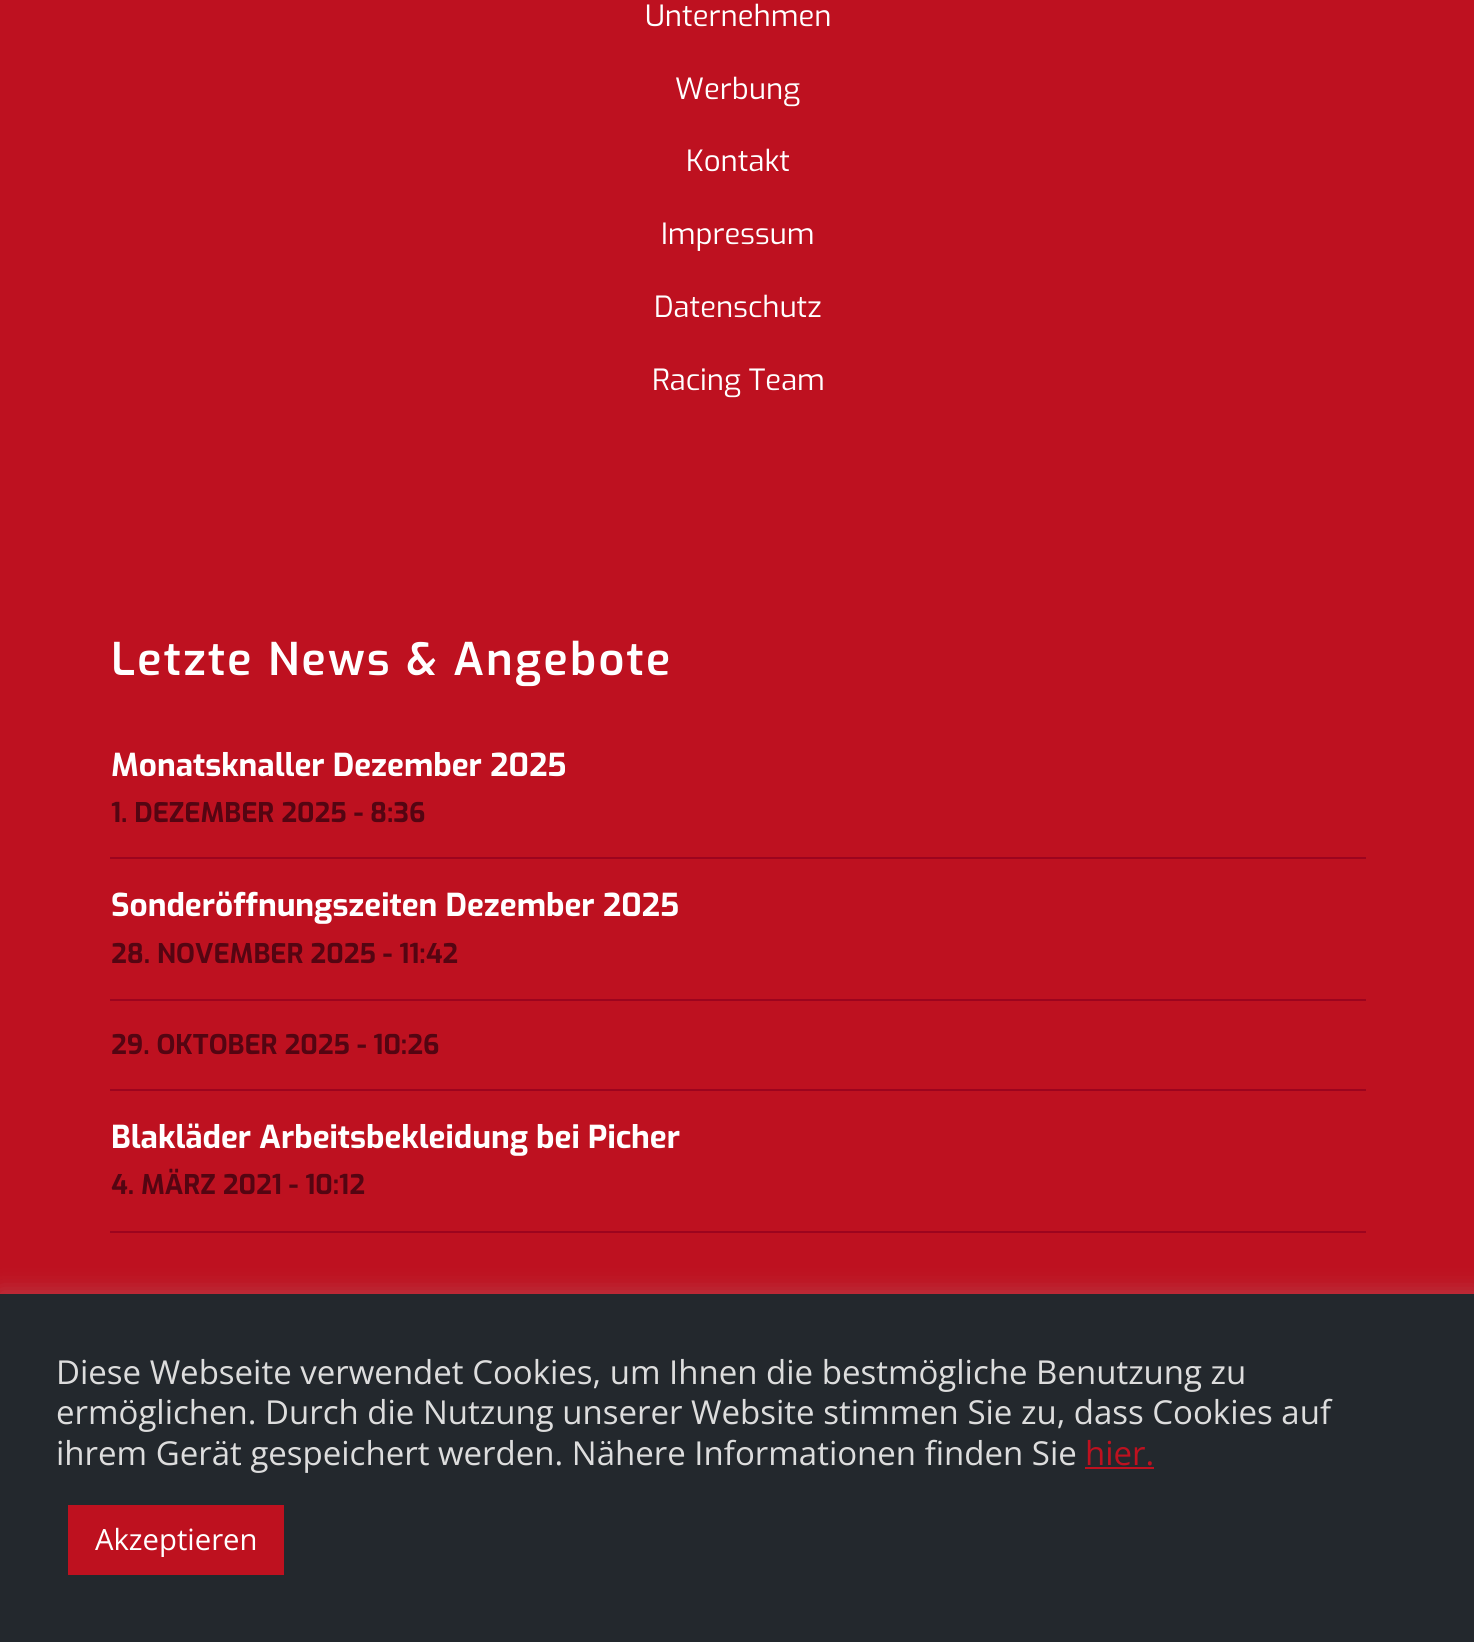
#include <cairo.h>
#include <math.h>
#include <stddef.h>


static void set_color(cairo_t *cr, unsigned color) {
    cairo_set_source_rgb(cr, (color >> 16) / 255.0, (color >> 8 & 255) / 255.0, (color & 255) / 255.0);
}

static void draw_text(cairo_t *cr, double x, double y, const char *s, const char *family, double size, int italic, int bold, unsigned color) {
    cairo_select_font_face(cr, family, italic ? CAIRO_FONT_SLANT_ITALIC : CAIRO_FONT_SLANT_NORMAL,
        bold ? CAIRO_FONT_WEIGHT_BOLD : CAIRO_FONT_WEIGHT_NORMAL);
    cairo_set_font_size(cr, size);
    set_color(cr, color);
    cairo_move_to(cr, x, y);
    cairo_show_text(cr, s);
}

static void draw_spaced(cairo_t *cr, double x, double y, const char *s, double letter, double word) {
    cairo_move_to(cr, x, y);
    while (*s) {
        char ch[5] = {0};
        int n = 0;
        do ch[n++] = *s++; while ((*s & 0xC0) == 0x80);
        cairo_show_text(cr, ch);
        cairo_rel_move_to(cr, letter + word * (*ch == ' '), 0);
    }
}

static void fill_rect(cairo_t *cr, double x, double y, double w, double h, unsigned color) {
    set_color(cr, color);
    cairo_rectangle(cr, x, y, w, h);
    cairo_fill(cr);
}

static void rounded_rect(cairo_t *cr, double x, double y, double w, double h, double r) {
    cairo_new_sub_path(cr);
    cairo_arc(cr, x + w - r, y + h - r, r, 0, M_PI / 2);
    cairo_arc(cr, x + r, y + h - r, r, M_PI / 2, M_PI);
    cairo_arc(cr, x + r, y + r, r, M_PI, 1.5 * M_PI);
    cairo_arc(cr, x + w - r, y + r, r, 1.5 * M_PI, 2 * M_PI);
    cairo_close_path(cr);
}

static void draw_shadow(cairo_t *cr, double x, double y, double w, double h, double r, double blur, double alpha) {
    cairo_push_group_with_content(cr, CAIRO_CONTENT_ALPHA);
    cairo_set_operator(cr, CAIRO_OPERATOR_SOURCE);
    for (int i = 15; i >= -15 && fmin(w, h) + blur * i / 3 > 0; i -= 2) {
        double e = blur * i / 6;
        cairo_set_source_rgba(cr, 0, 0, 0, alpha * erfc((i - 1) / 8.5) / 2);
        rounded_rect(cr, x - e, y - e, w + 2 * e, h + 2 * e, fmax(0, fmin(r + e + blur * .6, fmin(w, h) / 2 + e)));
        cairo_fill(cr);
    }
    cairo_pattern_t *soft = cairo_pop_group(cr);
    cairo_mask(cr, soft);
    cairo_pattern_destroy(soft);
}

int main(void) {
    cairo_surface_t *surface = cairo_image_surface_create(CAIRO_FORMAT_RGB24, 1474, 1642);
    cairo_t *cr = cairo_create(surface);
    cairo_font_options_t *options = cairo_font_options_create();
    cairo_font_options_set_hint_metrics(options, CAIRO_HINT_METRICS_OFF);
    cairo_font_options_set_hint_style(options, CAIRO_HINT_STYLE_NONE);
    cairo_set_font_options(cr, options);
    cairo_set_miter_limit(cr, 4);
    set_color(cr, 0xBE1120);
    cairo_paint(cr);
    draw_text(cr, 645, 26, "Unternehmen", "Exo", 29.25, 0, 0, 0xFFFFFF);
    draw_text(cr, 675, 99, "Werbung", "Exo", 29.25, 0, 0, 0xFFFFFF);
    draw_text(cr, 686, 171, "Kontakt", "Exo", 29.25, 0, 0, 0xFFFFFF);
    draw_text(cr, 661, 244, "Impressum", "Exo", 29.25, 0, 0, 0xFFFFFF);
    draw_text(cr, 654, 317, "Datenschutz", "Exo", 29.25, 0, 0, 0xFFFFFF);
    draw_text(cr, 652, 390, "Racing Team", "Exo", 29.25, 0, 0, 0xFFFFFF);
    cairo_select_font_face(cr, "Exo SemiBold", CAIRO_FONT_SLANT_NORMAL, CAIRO_FONT_WEIGHT_NORMAL);
    cairo_set_font_size(cr, 45);
    draw_spaced(cr, 111, 675, "Letzte News & Angebote", 2.25, 0);
    fill_rect(cr, 110, 857, 1256, 2, 0x9D041E);
    draw_text(cr, 111, 776, "Monatsknaller Dezember 2025", "Exo", 31.5, 0, 1, 0xFFFFFF);
    draw_text(cr, 111, 822, "1. DEZEMBER 2025 - 8:36", "Exo", 27, 0, 1, 0x540512);
    fill_rect(cr, 110, 999, 1256, 2, 0x9D041E);
    draw_text(cr, 111, 916, "Sonderöffnungszeiten Dezember 2025", "Exo", 31.5, 0, 1, 0xFFFFFF);
    draw_text(cr, 111, 963, "28. NOVEMBER 2025 - 11:42", "Exo", 27, 0, 1, 0x540512);
    fill_rect(cr, 110, 1089, 1256, 2, 0x9D041E);
    draw_text(cr, 111, 1054, "29. OKTOBER 2025 - 10:26", "Exo", 27, 0, 1, 0x540512);
    fill_rect(cr, 110, 1231, 1256, 2, 0x9D041E);
    draw_text(cr, 111, 1148, "Blakläder Arbeitsbekleidung bei Picher", "Exo", 31.5, 0, 1, 0xFFFFFF);
    draw_text(cr, 111, 1194, "4. MÄRZ 2021 - 10:12", "Exo", 27, 0, 1, 0x540512);
    set_color(cr, 0xACABAB);
    draw_shadow(cr, 0, 1292, 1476, 348, 0, 11, 0.3);
    fill_rect(cr, 0, 1294, 1474, 348, 0x23282D);
    draw_text(cr, 56, 1384, "Diese Webseite verwendet Cookies, um Ihnen die bestmögliche Benutzung zu", "Open Sans", 33, 0, 0, 0xDDDDDD);
    draw_text(cr, 56, 1424, "ermöglichen. Durch die Nutzung unserer Website stimmen Sie zu, dass Cookies auf", "Open Sans", 33, 0, 0, 0xDDDDDD);
    draw_text(cr, 56, 1465, "ihrem Gerät gespeichert werden. Nähere Informationen finden Sie", "Open Sans", 33, 0, 0, 0xDDDDDD);
    draw_text(cr, 1085, 1465, "hier.", "Open Sans", 33, 0, 0, 0xBE111F);
    fill_rect(cr, 1085, 1467, 69, 2, 0xBE111F);
    fill_rect(cr, 68, 1505, 216, 70, 0xBE111F);
    draw_text(cr, 95, 1550, "Akzeptieren", "Open Sans", 29.25, 0, 0, 0xFFFFFF);
    cairo_surface_write_to_png(surface, "output.png");
    cairo_font_options_destroy(options);
    cairo_destroy(cr);
    cairo_surface_destroy(surface);
    return 0;
}
